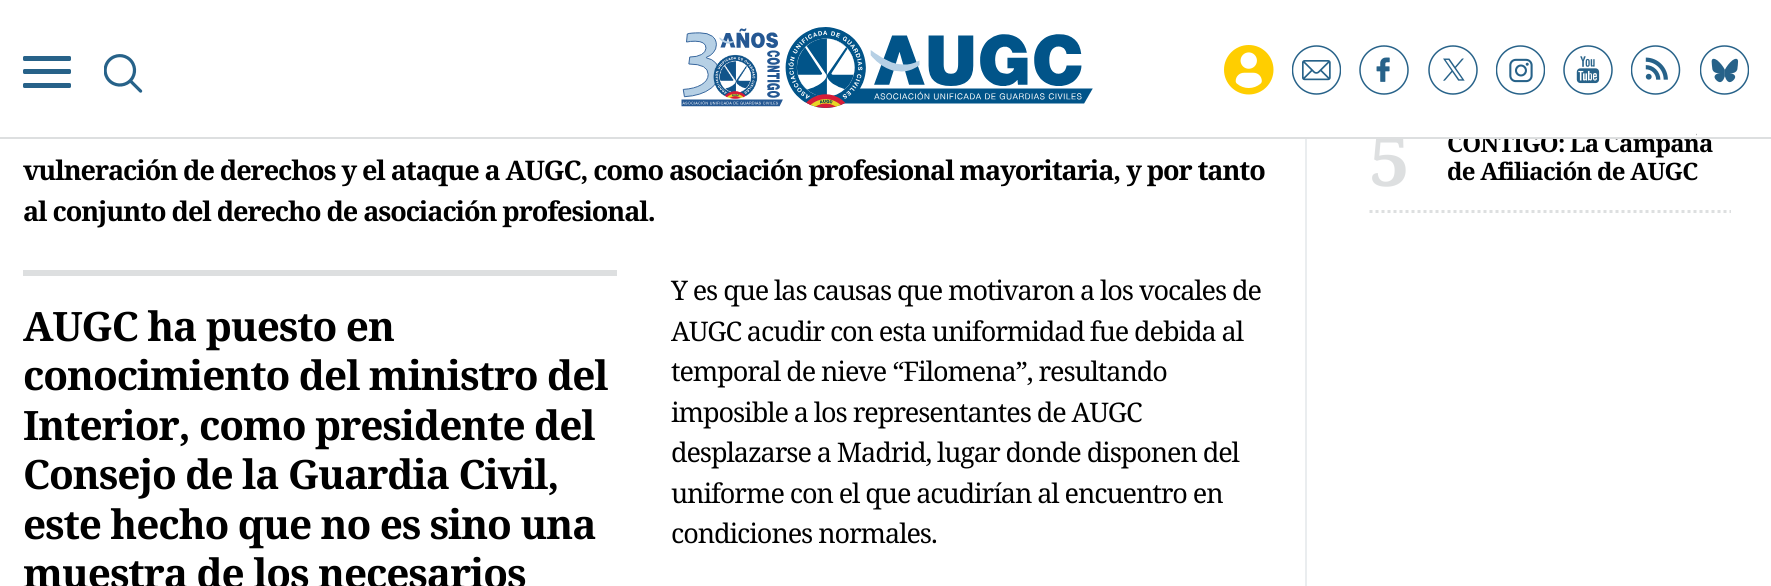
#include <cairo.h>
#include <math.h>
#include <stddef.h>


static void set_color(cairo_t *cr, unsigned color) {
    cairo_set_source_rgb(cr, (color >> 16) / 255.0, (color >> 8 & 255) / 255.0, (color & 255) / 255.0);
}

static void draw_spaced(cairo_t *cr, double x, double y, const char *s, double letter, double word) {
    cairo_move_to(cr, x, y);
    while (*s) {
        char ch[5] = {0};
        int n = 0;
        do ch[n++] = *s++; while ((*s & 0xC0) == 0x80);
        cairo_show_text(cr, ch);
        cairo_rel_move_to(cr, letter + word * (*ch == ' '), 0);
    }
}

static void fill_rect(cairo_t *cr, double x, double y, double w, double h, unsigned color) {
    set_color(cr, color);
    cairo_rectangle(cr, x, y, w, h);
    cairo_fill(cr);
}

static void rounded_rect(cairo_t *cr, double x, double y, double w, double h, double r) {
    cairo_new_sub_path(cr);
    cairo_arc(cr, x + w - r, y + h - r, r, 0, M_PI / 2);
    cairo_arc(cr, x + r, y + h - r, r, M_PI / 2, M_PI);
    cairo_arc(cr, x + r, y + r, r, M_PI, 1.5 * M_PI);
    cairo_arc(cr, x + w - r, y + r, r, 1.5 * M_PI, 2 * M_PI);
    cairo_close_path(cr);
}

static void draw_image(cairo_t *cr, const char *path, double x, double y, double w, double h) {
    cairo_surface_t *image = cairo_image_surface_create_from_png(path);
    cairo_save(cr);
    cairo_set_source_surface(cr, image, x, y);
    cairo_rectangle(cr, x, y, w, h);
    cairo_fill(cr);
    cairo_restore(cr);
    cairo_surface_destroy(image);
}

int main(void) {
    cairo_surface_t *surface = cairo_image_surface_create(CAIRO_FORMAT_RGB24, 1771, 586);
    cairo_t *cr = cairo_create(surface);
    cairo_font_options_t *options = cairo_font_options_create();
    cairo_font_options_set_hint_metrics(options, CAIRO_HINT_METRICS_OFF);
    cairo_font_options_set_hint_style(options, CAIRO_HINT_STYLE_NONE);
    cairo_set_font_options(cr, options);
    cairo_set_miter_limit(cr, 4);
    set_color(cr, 0xFFFFFF);
    cairo_paint(cr);
    cairo_select_font_face(cr, "Noto Serif", CAIRO_FONT_SLANT_NORMAL, CAIRO_FONT_WEIGHT_BOLD);
    cairo_set_font_size(cr, 72);
    set_color(cr, 0xDDDFE0);
    draw_spaced(cr, 1369, 186, "5", -0.8, 0);
    cairo_set_font_size(cr, 24);
    set_color(cr, 0x000000);
    draw_spaced(cr, 1447, 152, "CONTIGO: La Campaña", -0.8, 0);
    fill_rect(cr, 1376, 133, 320, 4, 0xFFFFFF);
    fill_rect(cr, 0, 137, 1771, 2, 0xDDDFE0);
    set_color(cr, 0x276289);
    rounded_rect(cr, 23, 69, 48, 5, 1.5);
    cairo_fill(cr);
    rounded_rect(cr, 23, 56, 48, 5, 1.5);
    cairo_fill(cr);
    rounded_rect(cr, 23, 83, 48, 5, 1.5);
    cairo_fill(cr);
    draw_image(cr, "assets/img1.png", 104, 54, 39, 39);
    draw_image(cr, "assets/img2.png", 681, 27, 412, 81);
    draw_image(cr, "assets/img3.png", 1224, 45, 50, 50);
    draw_image(cr, "assets/img4.png", 1292, 45, 49, 50);
    draw_image(cr, "assets/img5.png", 1359, 45, 50, 50);
    draw_image(cr, "assets/img6.png", 1428, 45, 50, 50);
    draw_image(cr, "assets/img7.png", 1496, 45, 49, 50);
    draw_image(cr, "assets/img8.png", 1563, 45, 50, 50);
    draw_image(cr, "assets/img9.png", 1631, 45, 50, 50);
    draw_image(cr, "assets/img10.png", 1700, 45, 49, 50);
    fill_rect(cr, 1305, 139, 2, 447, 0xEAEDEF);
    cairo_set_font_size(cr, 27);
    set_color(cr, 0x000000);
    draw_spaced(cr, 23, 180, "vulneración de derechos y el ataque a AUGC, como asociación profesional mayoritaria, y por tanto", -1.08, 0);
    draw_spaced(cr, 23, 221, "al conjunto del derecho de asociación profesional.", -1.08, 0);
    fill_rect(cr, 23, 270, 594, 6, 0xDDDFE0);
    cairo_set_font_size(cr, 40.5);
    set_color(cr, 0x000000);
    draw_spaced(cr, 23, 341, "AUGC ha puesto en", -1.08, 0);
    draw_spaced(cr, 23, 390, "conocimiento del ministro del", -1.08, 0);
    draw_spaced(cr, 23, 440, "Interior, como presidente del", -1.08, 0);
    draw_spaced(cr, 23, 489, "Consejo de la Guardia Civil,", -1.08, 0);
    draw_spaced(cr, 23, 539, "este hecho que no es sino una", -1.08, 0);
    draw_spaced(cr, 23, 588, "muestra de los necesarios", -1.08, 0);
    cairo_select_font_face(cr, "Noto Serif", CAIRO_FONT_SLANT_NORMAL, CAIRO_FONT_WEIGHT_NORMAL);
    cairo_set_font_size(cr, 27);
    draw_spaced(cr, 671, 300, "Y es que las causas que motivaron a los vocales de", -1.08, 0);
    draw_spaced(cr, 671, 341, "AUGC acudir con esta uniformidad fue debida al", -1.08, 0);
    draw_spaced(cr, 671, 381, "temporal de nieve “Filomena”, resultando", -1.08, 0);
    draw_spaced(cr, 671, 422, "imposible a los representantes de AUGC", -1.08, 0);
    draw_spaced(cr, 671, 462, "desplazarse a Madrid, lugar donde disponen del", -1.08, 0);
    draw_spaced(cr, 671, 503, "uniforme con el que acudirían al encuentro en", -1.08, 0);
    draw_spaced(cr, 671, 543, "condiciones normales.", -1.08, 0);
    cairo_new_path(cr);
    cairo_move_to(cr, 1369.5, 211.5);
    cairo_line_to(cr, 1731, 211.5);
    set_color(cr, 0xDDDFE0);
    cairo_set_line_width(cr, 3);
    cairo_set_dash(cr, (double[]){3, 3}, 2, 0);
    cairo_stroke(cr);
    cairo_select_font_face(cr, "Noto Serif", CAIRO_FONT_SLANT_NORMAL, CAIRO_FONT_WEIGHT_BOLD);
    cairo_set_font_size(cr, 24);
    set_color(cr, 0x000000);
    draw_spaced(cr, 1447, 180, "de Afiliación de AUGC", -0.8, 0);
    cairo_surface_write_to_png(surface, "output.png");
    cairo_font_options_destroy(options);
    cairo_destroy(cr);
    cairo_surface_destroy(surface);
    return 0;
}
